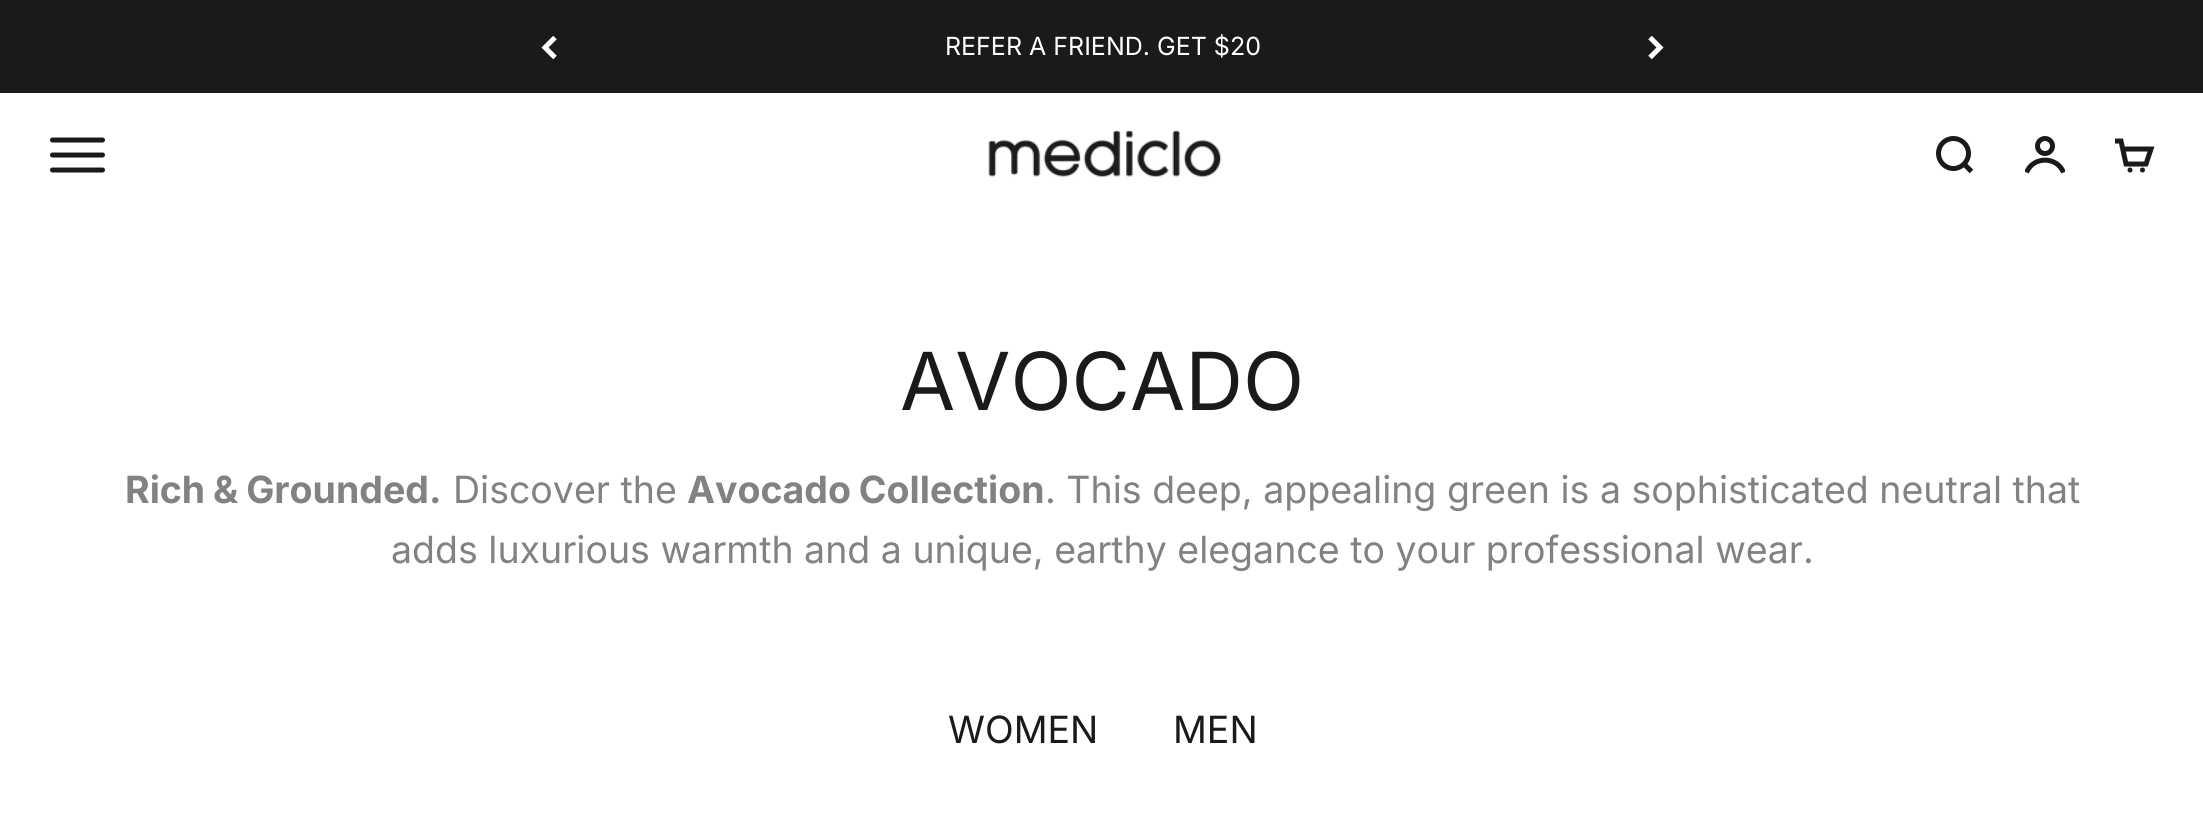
#include <cairo.h>
#include <math.h>
#include <stddef.h>


static void set_color(cairo_t *cr, unsigned color) {
    cairo_set_source_rgb(cr, (color >> 16) / 255.0, (color >> 8 & 255) / 255.0, (color & 255) / 255.0);
}

static void draw_text(cairo_t *cr, double x, double y, const char *s, const char *family, double size, int italic, int bold, unsigned color) {
    cairo_select_font_face(cr, family, italic ? CAIRO_FONT_SLANT_ITALIC : CAIRO_FONT_SLANT_NORMAL,
        bold ? CAIRO_FONT_WEIGHT_BOLD : CAIRO_FONT_WEIGHT_NORMAL);
    cairo_set_font_size(cr, size);
    set_color(cr, color);
    cairo_move_to(cr, x, y);
    cairo_show_text(cr, s);
}

static void draw_spaced(cairo_t *cr, double x, double y, const char *s, double letter, double word) {
    cairo_move_to(cr, x, y);
    while (*s) {
        char ch[5] = {0};
        int n = 0;
        do ch[n++] = *s++; while ((*s & 0xC0) == 0x80);
        cairo_show_text(cr, ch);
        cairo_rel_move_to(cr, letter + word * (*ch == ' '), 0);
    }
}

static void fill_rect(cairo_t *cr, double x, double y, double w, double h, unsigned color) {
    set_color(cr, color);
    cairo_rectangle(cr, x, y, w, h);
    cairo_fill(cr);
}

static void draw_image(cairo_t *cr, const char *path, double x, double y, double w, double h) {
    cairo_surface_t *image = cairo_image_surface_create_from_png(path);
    cairo_save(cr);
    cairo_set_source_surface(cr, image, x, y);
    cairo_rectangle(cr, x, y, w, h);
    cairo_fill(cr);
    cairo_restore(cr);
    cairo_surface_destroy(image);
}

int main(void) {
    cairo_surface_t *surface = cairo_image_surface_create(CAIRO_FORMAT_RGB24, 2203, 834);
    cairo_t *cr = cairo_create(surface);
    cairo_font_options_t *options = cairo_font_options_create();
    cairo_font_options_set_hint_metrics(options, CAIRO_HINT_METRICS_OFF);
    cairo_font_options_set_hint_style(options, CAIRO_HINT_STYLE_NONE);
    cairo_set_font_options(cr, options);
    cairo_set_miter_limit(cr, 4);
    set_color(cr, 0xFFFFFF);
    cairo_paint(cr);
    fill_rect(cr, 0, 0, 2203, 93, 0x1A1A1A);
    cairo_new_path(cr);
    cairo_move_to(cr, 555, 37.5);
    cairo_line_to(cr, 545, 47.5);
    cairo_line_to(cr, 555, 57.5);
    set_color(cr, 0xFFFFFF);
    cairo_set_line_width(cr, 5);
    cairo_stroke(cr);
    draw_text(cr, 945, 55, "REFER A FRIEND. GET $20", "Inter", 25, 0, 0, 0xFFFFFF);
    cairo_new_path(cr);
    cairo_move_to(cr, 1650, 57.5);
    cairo_line_to(cr, 1660, 47.5);
    cairo_line_to(cr, 1650, 37.5);
    cairo_stroke(cr);
    cairo_new_path(cr);
    cairo_move_to(cr, 52.5, 140);
    cairo_line_to(cr, 102.5, 140);
    cairo_move_to(cr, 52.5, 155);
    cairo_line_to(cr, 102.5, 155);
    cairo_move_to(cr, 52.5, 170);
    cairo_line_to(cr, 102.5, 170);
    set_color(cr, 0x1A1A1A);
    cairo_set_line_cap(cr, CAIRO_LINE_CAP_ROUND);
    cairo_stroke(cr);
    draw_image(cr, "assets/img1.png", 988, 130, 234, 48);
    cairo_new_path(cr);
    cairo_move_to(cr, 1938.5, 153.5);
    cairo_curve_to(cr, 1938.5, 161.5, 1945, 168.5, 1953.5, 168.5);
    cairo_curve_to(cr, 1961.5, 168.5, 1968.5, 161.5, 1968.5, 153.5);
    cairo_curve_to(cr, 1968.5, 145, 1961.5, 138.5, 1953.5, 138.5);
    cairo_curve_to(cr, 1945, 138.5, 1938.5, 145, 1938.5, 153.5);
    cairo_close_path(cr);
    cairo_move_to(cr, 1964, 164);
    cairo_line_to(cr, 1971.5, 171.5);
    cairo_set_line_cap(cr, CAIRO_LINE_CAP_BUTT);
    cairo_stroke(cr);
    cairo_save(cr);
    cairo_rectangle(cr, 2025, 135, 40, 40);
    cairo_clip(cr);
    cairo_new_path(cr);
    cairo_move_to(cr, 2063.5, 172.5);
    cairo_curve_to(cr, 2057, 156, 2033, 156, 2026.5, 172.5);
    cairo_stroke(cr);
    cairo_restore(cr);
    cairo_arc(cr, 2045, 146, 7.5, 0, 2 * M_PI);
    cairo_stroke(cr);
    cairo_new_path(cr);
    cairo_move_to(cr, 2115, 141);
    cairo_line_to(cr, 2121, 141);
    cairo_line_to(cr, 2126, 164);
    cairo_line_to(cr, 2146, 164);
    cairo_line_to(cr, 2151, 149);
    cairo_line_to(cr, 2123, 149);
    cairo_stroke(cr);
    cairo_arc(cr, 2130, 170, 2.5, 0, 2 * M_PI);
    cairo_fill(cr);
    cairo_arc(cr, 2142.5, 170, 2.5, 0, 2 * M_PI);
    cairo_fill(cr);
    draw_text(cr, 900, 410, "AVOCADO", "Inter", 80, 0, 0, 0x1A1A1A);
    cairo_select_font_face(cr, "Inter", CAIRO_FONT_SLANT_NORMAL, CAIRO_FONT_WEIGHT_BOLD);
    cairo_set_font_size(cr, 37.5);
    set_color(cr, 0x828282);
    draw_spaced(cr, 125, 503, "Rich & Grounded.", 0, -1);
    draw_text(cr, 453, 503, "Discover the", "Inter", 37.5, 0, 0, 0x828282);
    cairo_select_font_face(cr, "Inter", CAIRO_FONT_SLANT_NORMAL, CAIRO_FONT_WEIGHT_BOLD);
    draw_spaced(cr, 687, 503, "Avocado Collection", 0, -1);
    draw_text(cr, 1045, 503, ". This deep, appealing green is a sophisticated neutral that", "Inter", 37.5, 0, 0, 0x828282);
    draw_text(cr, 391, 563, "adds luxurious warmth and a unique, earthy elegance to your professional wear.", "Inter", 37.5, 0, 0, 0x828282);
    draw_text(cr, 948, 743, "WOMEN", "Inter", 37.5, 0, 0, 0x1A1A1A);
    draw_text(cr, 1173, 743, "MEN", "Inter", 37.5, 0, 0, 0x1A1A1A);
    cairo_surface_write_to_png(surface, "output.png");
    cairo_font_options_destroy(options);
    cairo_destroy(cr);
    cairo_surface_destroy(surface);
    return 0;
}
